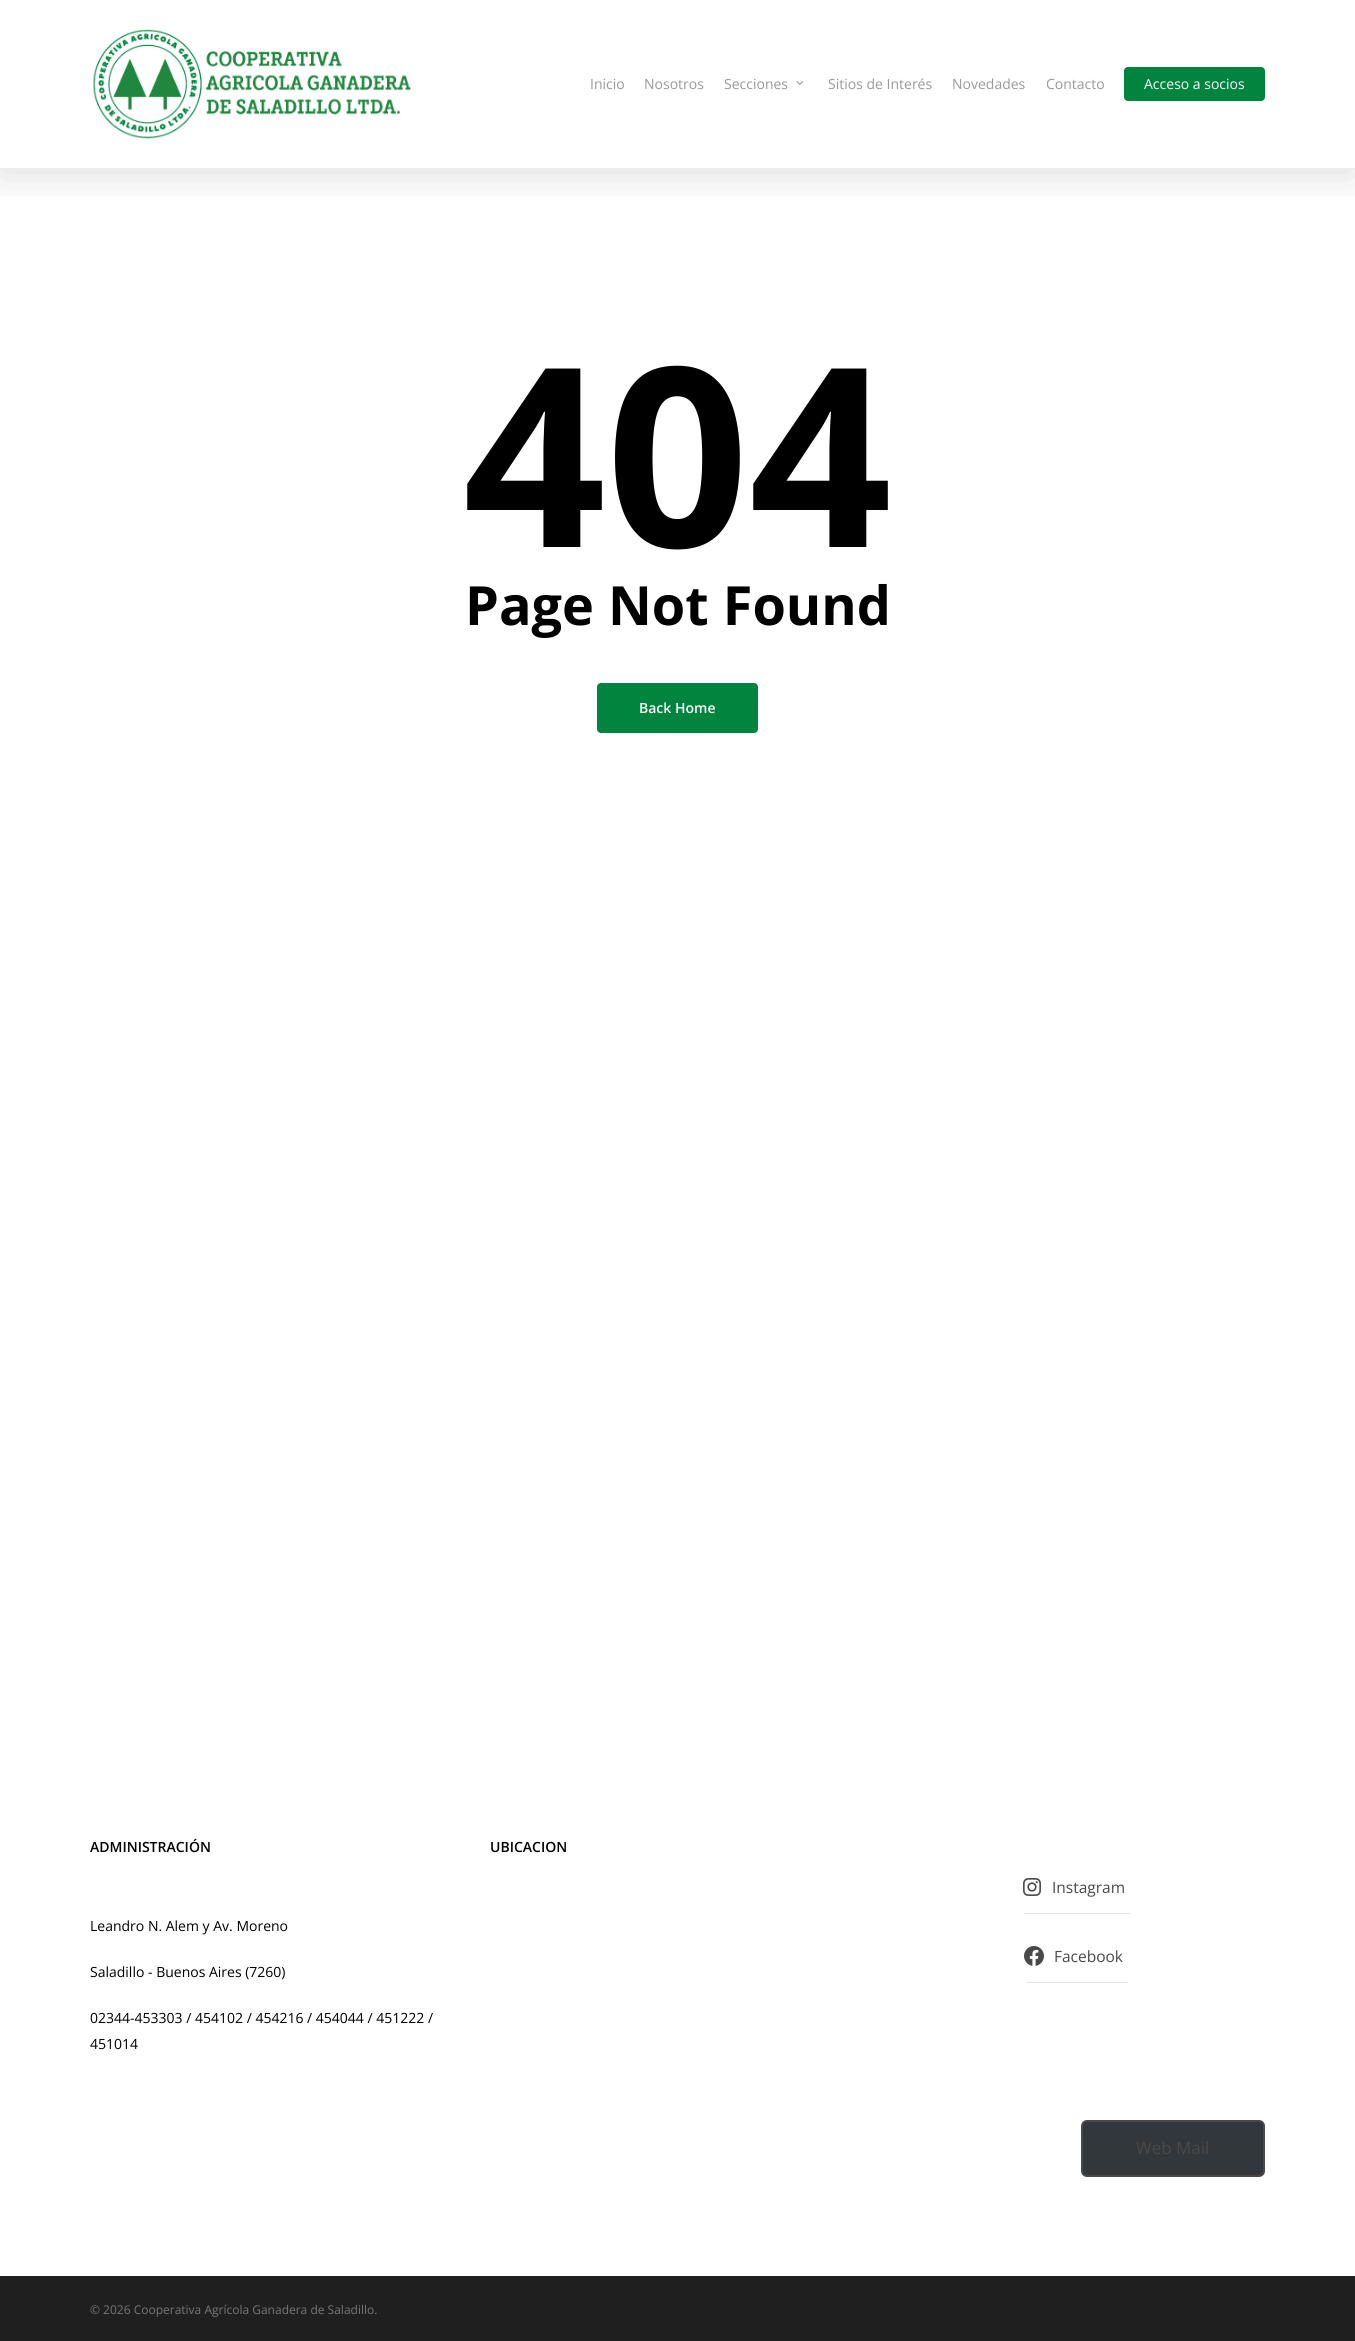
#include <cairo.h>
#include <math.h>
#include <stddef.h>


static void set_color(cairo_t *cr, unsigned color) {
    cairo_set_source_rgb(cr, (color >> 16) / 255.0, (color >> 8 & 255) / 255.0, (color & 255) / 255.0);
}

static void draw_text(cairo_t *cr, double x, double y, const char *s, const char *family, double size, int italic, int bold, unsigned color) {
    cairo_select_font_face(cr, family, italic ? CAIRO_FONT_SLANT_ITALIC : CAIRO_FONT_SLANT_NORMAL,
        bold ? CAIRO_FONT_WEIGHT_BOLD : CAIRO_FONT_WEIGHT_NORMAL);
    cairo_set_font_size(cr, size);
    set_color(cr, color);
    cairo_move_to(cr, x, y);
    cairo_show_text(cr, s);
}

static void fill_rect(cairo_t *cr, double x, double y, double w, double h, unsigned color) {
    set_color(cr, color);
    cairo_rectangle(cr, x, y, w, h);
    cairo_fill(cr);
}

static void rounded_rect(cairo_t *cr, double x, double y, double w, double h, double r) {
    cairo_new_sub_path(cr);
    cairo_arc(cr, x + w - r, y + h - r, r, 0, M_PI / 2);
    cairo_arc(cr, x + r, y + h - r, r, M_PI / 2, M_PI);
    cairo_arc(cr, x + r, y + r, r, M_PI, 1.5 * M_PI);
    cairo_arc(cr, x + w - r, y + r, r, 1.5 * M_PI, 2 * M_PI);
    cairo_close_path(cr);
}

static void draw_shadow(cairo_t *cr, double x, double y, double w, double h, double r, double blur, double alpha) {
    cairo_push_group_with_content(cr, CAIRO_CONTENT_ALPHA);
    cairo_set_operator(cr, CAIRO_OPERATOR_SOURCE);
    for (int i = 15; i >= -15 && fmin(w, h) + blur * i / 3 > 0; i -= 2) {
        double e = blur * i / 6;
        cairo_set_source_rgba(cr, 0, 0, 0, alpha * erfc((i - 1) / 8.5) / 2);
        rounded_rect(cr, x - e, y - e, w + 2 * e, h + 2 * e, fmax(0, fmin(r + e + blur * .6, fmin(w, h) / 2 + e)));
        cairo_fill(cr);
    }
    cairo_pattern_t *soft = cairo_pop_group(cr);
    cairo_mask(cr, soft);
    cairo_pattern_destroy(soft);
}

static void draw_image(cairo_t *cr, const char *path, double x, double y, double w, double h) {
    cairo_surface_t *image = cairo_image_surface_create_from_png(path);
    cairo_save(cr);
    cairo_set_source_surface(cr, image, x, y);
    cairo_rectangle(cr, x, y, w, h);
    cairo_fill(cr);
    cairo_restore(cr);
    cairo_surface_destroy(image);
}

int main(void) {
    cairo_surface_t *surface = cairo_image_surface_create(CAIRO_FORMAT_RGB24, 1355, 2341);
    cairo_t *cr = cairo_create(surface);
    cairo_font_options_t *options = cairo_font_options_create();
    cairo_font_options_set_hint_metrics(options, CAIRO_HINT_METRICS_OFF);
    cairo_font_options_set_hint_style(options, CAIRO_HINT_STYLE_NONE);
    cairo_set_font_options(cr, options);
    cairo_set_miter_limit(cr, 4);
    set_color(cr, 0xFFFFFF);
    cairo_paint(cr);
    cairo_save(cr);
    cairo_rectangle(cr, 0, 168, 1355, 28);
    cairo_clip(cr);
    set_color(cr, 0x000000);
    draw_shadow(cr, 0, 3, 1355, 168, 0, 22.5, 0.15);
    cairo_restore(cr);
    draw_image(cr, "assets/img1.png", 93, 29, 318, 110);
    draw_text(cr, 590, 89, "Inicio", "Open Sans", 14, 0, 0, 0x999999);
    draw_text(cr, 644, 89, "Nosotros", "Open Sans", 14, 0, 0, 0x999999);
    draw_text(cr, 724, 89, "Secciones", "Open Sans", 14, 0, 0, 0x999999);
    draw_image(cr, "assets/img2.png", 796, 81, 8, 4);
    draw_text(cr, 828, 89, "Sitios de Interés", "Open Sans", 14, 0, 0, 0x999999);
    draw_text(cr, 952, 89, "Novedades", "Open Sans", 14, 0, 0, 0x999999);
    draw_text(cr, 1046, 89, "Contacto", "Open Sans", 14, 0, 0, 0x999999);
    set_color(cr, 0x01843E);
    rounded_rect(cr, 1124, 67, 141, 34, 4);
    cairo_fill(cr);
    draw_text(cr, 1144, 89, "Acceso a socios", "Open Sans", 14, 0, 0, 0xFFFFFF);
    draw_text(cr, 463, 547, "404", "Open Sans", 250, 0, 1, 0x000000);
    draw_text(cr, 465, 625, "Page Not Found", "Open Sans", 54, 0, 1, 0x000000);
    set_color(cr, 0x01843E);
    rounded_rect(cr, 597, 683, 161, 50, 4);
    cairo_fill(cr);
    draw_text(cr, 639, 713, "Back Home", "Open Sans SemiBold", 14, 0, 0, 0xFFFFFF);
    draw_text(cr, 90, 1852, "ADMINISTRACIÓN", "Open Sans SemiBold", 14, 0, 0, 0x000000);
    draw_text(cr, 90, 1931, "Leandro N. Alem y Av. Moreno", "Open Sans", 14, 0, 0, 0x000000);
    draw_text(cr, 90, 1977, "Saladillo - Buenos Aires (7260)", "Open Sans", 14, 0, 0, 0x000000);
    draw_text(cr, 90, 2023, "02344-453303 / 454102 / 454216 / 454044 / 451222 /", "Open Sans", 14, 0, 0, 0x000000);
    draw_text(cr, 90, 2049, "451014", "Open Sans", 14, 0, 0, 0x000000);
    draw_text(cr, 490, 1852, "UBICACION", "Open Sans SemiBold", 14, 0, 0, 0x000000);
    fill_rect(cr, 1024, 1913, 106, 1, 0xE6E6E6);
    draw_image(cr, "assets/img3.png", 1023, 1878, 18, 18);
    draw_text(cr, 1052, 1893, "Instagram", "Open Sans", 15.5, 0, 0, 0x494949);
    fill_rect(cr, 1026, 1982, 102, 1, 0xE6E6E6);
    draw_image(cr, "assets/img4.png", 1024, 1946, 20, 20);
    draw_text(cr, 1054, 1962, "Facebook", "Open Sans", 15.5, 0, 0, 0x494949);
    set_color(cr, 0x32373C);
    rounded_rect(cr, 1082, 2121, 182, 55, 5);
    cairo_fill_preserve(cr);
    set_color(cr, 0x494949);
    cairo_stroke(cr);
    draw_text(cr, 1136, 2154, "Web Mail", "Open Sans", 17, 0, 0, 0x494949);
    fill_rect(cr, 0, 2276, 1355, 65, 0x1F1F1F);
    draw_text(cr, 90, 2314, "© 2026 Cooperativa Agrícola Ganadera de Saladillo.", "Open Sans", 12, 0, 0, 0x777777);
    cairo_surface_write_to_png(surface, "output.png");
    cairo_font_options_destroy(options);
    cairo_destroy(cr);
    cairo_surface_destroy(surface);
    return 0;
}
